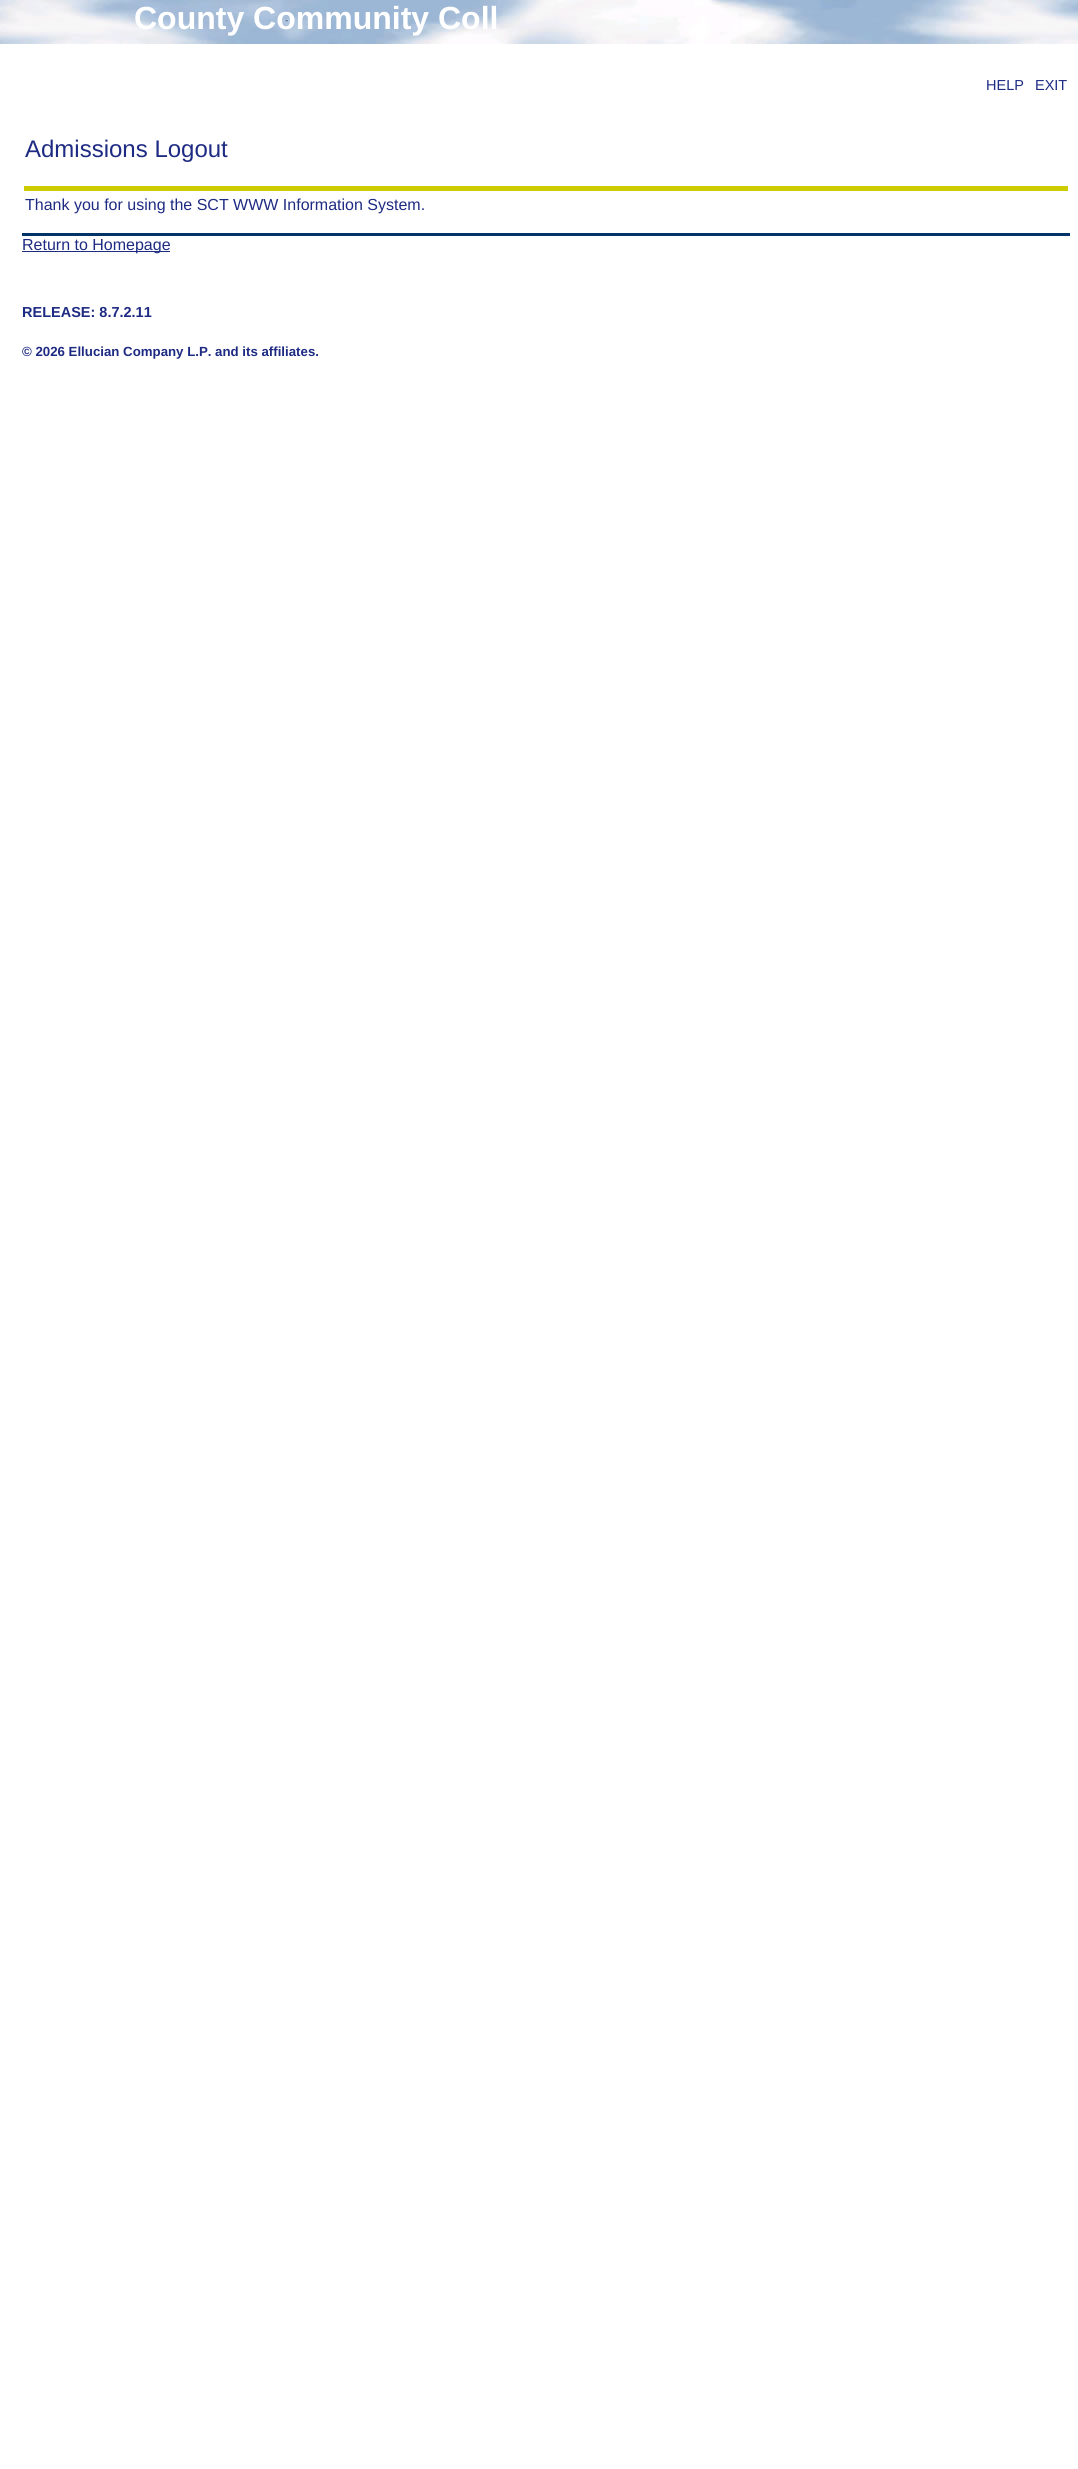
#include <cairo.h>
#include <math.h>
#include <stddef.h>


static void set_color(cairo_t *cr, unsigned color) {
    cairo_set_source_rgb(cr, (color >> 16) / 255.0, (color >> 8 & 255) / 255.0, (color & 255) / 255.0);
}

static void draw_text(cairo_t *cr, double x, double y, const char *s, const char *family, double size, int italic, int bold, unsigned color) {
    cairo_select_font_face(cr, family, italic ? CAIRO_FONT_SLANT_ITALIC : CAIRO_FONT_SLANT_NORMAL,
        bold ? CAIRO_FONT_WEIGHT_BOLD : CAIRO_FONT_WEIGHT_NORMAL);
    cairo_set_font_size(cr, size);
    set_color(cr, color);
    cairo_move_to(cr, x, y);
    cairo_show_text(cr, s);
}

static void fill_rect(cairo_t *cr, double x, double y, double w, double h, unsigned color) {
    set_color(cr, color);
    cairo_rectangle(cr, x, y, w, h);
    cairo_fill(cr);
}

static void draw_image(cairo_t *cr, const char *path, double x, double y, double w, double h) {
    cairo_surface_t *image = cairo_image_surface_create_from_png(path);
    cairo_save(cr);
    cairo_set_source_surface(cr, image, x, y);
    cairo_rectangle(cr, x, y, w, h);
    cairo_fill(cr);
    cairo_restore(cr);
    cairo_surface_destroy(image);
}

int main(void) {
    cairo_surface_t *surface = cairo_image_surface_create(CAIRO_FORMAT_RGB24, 1078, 2469);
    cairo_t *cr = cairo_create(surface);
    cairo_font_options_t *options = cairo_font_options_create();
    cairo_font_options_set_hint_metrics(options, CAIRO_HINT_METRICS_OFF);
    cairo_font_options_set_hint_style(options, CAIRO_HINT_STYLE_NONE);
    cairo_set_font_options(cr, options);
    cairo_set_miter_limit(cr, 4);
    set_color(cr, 0xFFFFFF);
    cairo_paint(cr);
    draw_image(cr, "assets/img1.png", 0, 0, 1078, 44);
    draw_text(cr, 134, 29, "County Community Coll", "Liberation Sans", 32, 0, 1, 0xFFFFFF);
    draw_text(cr, 986, 90, "HELP", "Liberation Sans", 14.5, 0, 0, 0x1E2B83);
    draw_text(cr, 1035, 90, "EXIT", "Liberation Sans", 14.5, 0, 0, 0x1E2B83);
    draw_text(cr, 25, 157, "Admissions Logout", "Liberation Sans", 24, 0, 0, 0x1E2B83);
    fill_rect(cr, 24, 186, 1044, 5, 0xCCCC00);
    draw_text(cr, 25, 210, "Thank you for using the SCT WWW Information System.", "Liberation Sans", 16, 0, 0, 0x1E2B83);
    fill_rect(cr, 22, 233, 1048, 3, 0x003366);
    fill_rect(cr, 22, 251, 148, 1, 0x1E2B83);
    draw_text(cr, 22, 250, "Return to Homepage", "Liberation Sans", 16, 0, 0, 0x1E2B83);
    draw_text(cr, 22, 317, "RELEASE: 8.7.2.11", "Liberation Sans", 14.5, 0, 1, 0x1E2B83);
    draw_text(cr, 22, 356, "© 2026 Ellucian Company L.P. and its affiliates.", "Liberation Sans", 13.25, 0, 1, 0x1E2B83);
    cairo_surface_write_to_png(surface, "output.png");
    cairo_font_options_destroy(options);
    cairo_destroy(cr);
    cairo_surface_destroy(surface);
    return 0;
}
